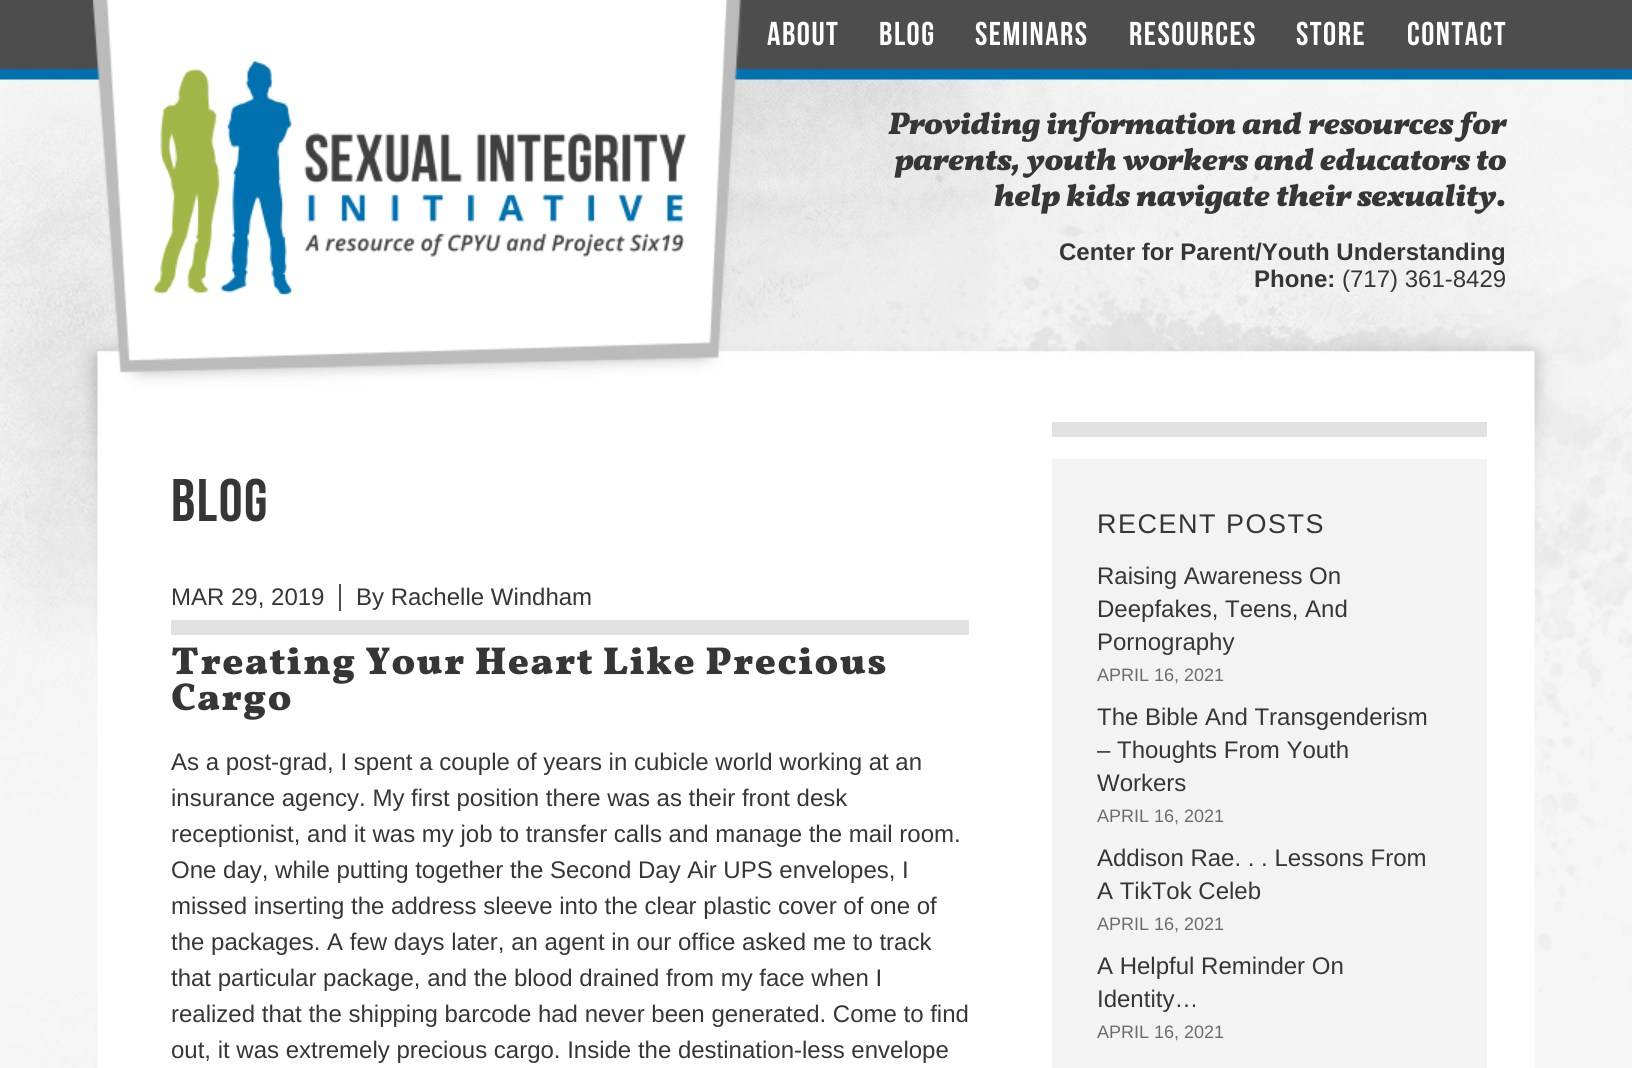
#include <cairo.h>
#include <math.h>
#include <stddef.h>


static void set_color(cairo_t *cr, unsigned color) {
    cairo_set_source_rgb(cr, (color >> 16) / 255.0, (color >> 8 & 255) / 255.0, (color & 255) / 255.0);
}

static void draw_text(cairo_t *cr, double x, double y, const char *s, const char *family, double size, int italic, int bold, unsigned color) {
    cairo_select_font_face(cr, family, italic ? CAIRO_FONT_SLANT_ITALIC : CAIRO_FONT_SLANT_NORMAL,
        bold ? CAIRO_FONT_WEIGHT_BOLD : CAIRO_FONT_WEIGHT_NORMAL);
    cairo_set_font_size(cr, size);
    set_color(cr, color);
    cairo_move_to(cr, x, y);
    cairo_show_text(cr, s);
}

static void draw_spaced(cairo_t *cr, double x, double y, const char *s, double letter, double word) {
    cairo_move_to(cr, x, y);
    while (*s) {
        char ch[5] = {0};
        int n = 0;
        do ch[n++] = *s++; while ((*s & 0xC0) == 0x80);
        cairo_show_text(cr, ch);
        cairo_rel_move_to(cr, letter + word * (*ch == ' '), 0);
    }
}

static void fill_rect(cairo_t *cr, double x, double y, double w, double h, unsigned color) {
    set_color(cr, color);
    cairo_rectangle(cr, x, y, w, h);
    cairo_fill(cr);
}

static void draw_image(cairo_t *cr, const char *path, double x, double y, double w, double h) {
    cairo_surface_t *image = cairo_image_surface_create_from_png(path);
    cairo_save(cr);
    cairo_set_source_surface(cr, image, x, y);
    cairo_rectangle(cr, x, y, w, h);
    cairo_fill(cr);
    cairo_restore(cr);
    cairo_surface_destroy(image);
}

int main(void) {
    cairo_surface_t *surface = cairo_image_surface_create(CAIRO_FORMAT_RGB24, 1632, 1068);
    cairo_t *cr = cairo_create(surface);
    cairo_font_options_t *options = cairo_font_options_create();
    cairo_font_options_set_hint_metrics(options, CAIRO_HINT_METRICS_OFF);
    cairo_font_options_set_hint_style(options, CAIRO_HINT_STYLE_NONE);
    cairo_set_font_options(cr, options);
    cairo_set_miter_limit(cr, 4);
    set_color(cr, 0xFFFFFF);
    cairo_paint(cr);
    draw_image(cr, "assets/img1.png", 0, 80, 1632, 304);
    draw_image(cr, "assets/img2.png", 0, 0, 1632, 80);
    draw_image(cr, "assets/img3.png", 92, 0, 650, 384);
    cairo_select_font_face(cr, "Bebas Neue", CAIRO_FONT_SLANT_NORMAL, CAIRO_FONT_WEIGHT_NORMAL);
    cairo_set_font_size(cr, 33);
    set_color(cr, 0xFFFFFF);
    draw_spaced(cr, 767, 45, "ABOUT", 1.5, 0);
    draw_spaced(cr, 879, 45, "BLOG", 1.5, 0);
    draw_spaced(cr, 975, 45, "SEMINARS", 1.5, 0);
    draw_spaced(cr, 1129, 45, "RESOURCES", 1.5, 0);
    draw_spaced(cr, 1296, 45, "STORE", 1.5, 0);
    draw_spaced(cr, 1407, 45, "CONTACT", 1.5, 0);
    draw_text(cr, 888, 134, "Providing information and resources for", "Vollkorn", 31.5, 1, 1, 0x363636);
    draw_text(cr, 895, 170, "parents, youth workers and educators to", "Vollkorn", 31.5, 1, 1, 0x363636);
    draw_text(cr, 994, 206, "help kids navigate their sexuality.", "Vollkorn", 31.5, 1, 1, 0x363636);
    draw_text(cr, 1059, 260, "Center for Parent/Youth Understanding", "Liberation Sans", 24, 0, 1, 0x363636);
    draw_text(cr, 1254, 287, "Phone:", "Liberation Sans", 24, 0, 1, 0x363636);
    draw_text(cr, 1342, 287, "(717) 361-8429", "Liberation Sans", 24, 0, 0, 0x363636);
    draw_image(cr, "assets/img4.png", 0, 992, 1632, 76);
    draw_image(cr, "assets/img5.png", 0, 384, 1632, 608);
    cairo_select_font_face(cr, "Bebas Neue", CAIRO_FONT_SLANT_NORMAL, CAIRO_FONT_WEIGHT_NORMAL);
    cairo_set_font_size(cr, 60);
    draw_spaced(cr, 171, 521, "BLOG", 1.5, 0);
    draw_text(cr, 171, 605, "MAR 29, 2019", "Liberation Sans", 24, 0, 0, 0x363636);
    fill_rect(cr, 339, 584, 2, 27, 0x4D4D4D);
    draw_text(cr, 356, 605, "By Rachelle Windham", "Liberation Sans", 24, 0, 0, 0x363636);
    fill_rect(cr, 171, 620, 798, 15, 0xE1E1E1);
    cairo_select_font_face(cr, "Vollkorn", CAIRO_FONT_SLANT_NORMAL, CAIRO_FONT_WEIGHT_BOLD);
    cairo_set_font_size(cr, 39);
    set_color(cr, 0x363636);
    draw_spaced(cr, 171, 674, "Treating Your Heart Like Precious", 1.5, 0);
    draw_spaced(cr, 171, 710, "Cargo", 1.5, 0);
    draw_text(cr, 171, 770, "As a post-grad, I spent a couple of years in cubicle world working at an", "Liberation Sans", 24, 0, 0, 0x363636);
    draw_text(cr, 171, 806, "insurance agency. My first position there was as their front desk", "Liberation Sans", 24, 0, 0, 0x363636);
    draw_text(cr, 171, 842, "receptionist, and it was my job to transfer calls and manage the mail room.", "Liberation Sans", 24, 0, 0, 0x363636);
    draw_text(cr, 171, 878, "One day, while putting together the Second Day Air UPS envelopes, I", "Liberation Sans", 24, 0, 0, 0x363636);
    draw_text(cr, 171, 914, "missed inserting the address sleeve into the clear plastic cover of one of", "Liberation Sans", 24, 0, 0, 0x363636);
    draw_text(cr, 171, 950, "the packages. A few days later, an agent in our office asked me to track", "Liberation Sans", 24, 0, 0, 0x363636);
    draw_text(cr, 171, 986, "that particular package, and the blood drained from my face when I", "Liberation Sans", 24, 0, 0, 0x363636);
    draw_text(cr, 171, 1022, "realized that the shipping barcode had never been generated. Come to find", "Liberation Sans", 24, 0, 0, 0x363636);
    draw_text(cr, 171, 1058, "out, it was extremely precious cargo. Inside the destination-less envelope", "Liberation Sans", 24, 0, 0, 0x363636);
    fill_rect(cr, 1052, 422, 435, 15, 0xE1E1E1);
    fill_rect(cr, 1052, 459, 435, 609, 0xF3F3F3);
    cairo_set_font_size(cr, 27);
    set_color(cr, 0x363636);
    draw_spaced(cr, 1097, 533, "RECENT POSTS", 1.5, 0);
    draw_text(cr, 1097, 584, "Raising Awareness On", "Liberation Sans", 24, 0, 0, 0x363636);
    draw_text(cr, 1097, 617, "Deepfakes, Teens, And", "Liberation Sans", 24, 0, 0, 0x363636);
    draw_text(cr, 1097, 650, "Pornography", "Liberation Sans", 24, 0, 0, 0x363636);
    draw_text(cr, 1097, 681, "APRIL 16, 2021", "Liberation Sans", 18, 0, 0, 0x6C6C6C);
    draw_text(cr, 1097, 725, "The Bible And Transgenderism", "Liberation Sans", 24, 0, 0, 0x363636);
    draw_text(cr, 1097, 758, "– Thoughts From Youth", "Liberation Sans", 24, 0, 0, 0x363636);
    draw_text(cr, 1097, 791, "Workers", "Liberation Sans", 24, 0, 0, 0x363636);
    draw_text(cr, 1097, 822, "APRIL 16, 2021", "Liberation Sans", 18, 0, 0, 0x6C6C6C);
    draw_text(cr, 1097, 866, "Addison Rae. . . Lessons From", "Liberation Sans", 24, 0, 0, 0x363636);
    draw_text(cr, 1097, 899, "A TikTok Celeb", "Liberation Sans", 24, 0, 0, 0x363636);
    draw_text(cr, 1097, 930, "APRIL 16, 2021", "Liberation Sans", 18, 0, 0, 0x6C6C6C);
    draw_text(cr, 1097, 974, "A Helpful Reminder On", "Liberation Sans", 24, 0, 0, 0x363636);
    draw_text(cr, 1097, 1007, "Identity…", "Liberation Sans", 24, 0, 0, 0x363636);
    draw_text(cr, 1097, 1038, "APRIL 16, 2021", "Liberation Sans", 18, 0, 0, 0x6C6C6C);
    cairo_surface_write_to_png(surface, "output.png");
    cairo_font_options_destroy(options);
    cairo_destroy(cr);
    cairo_surface_destroy(surface);
    return 0;
}
